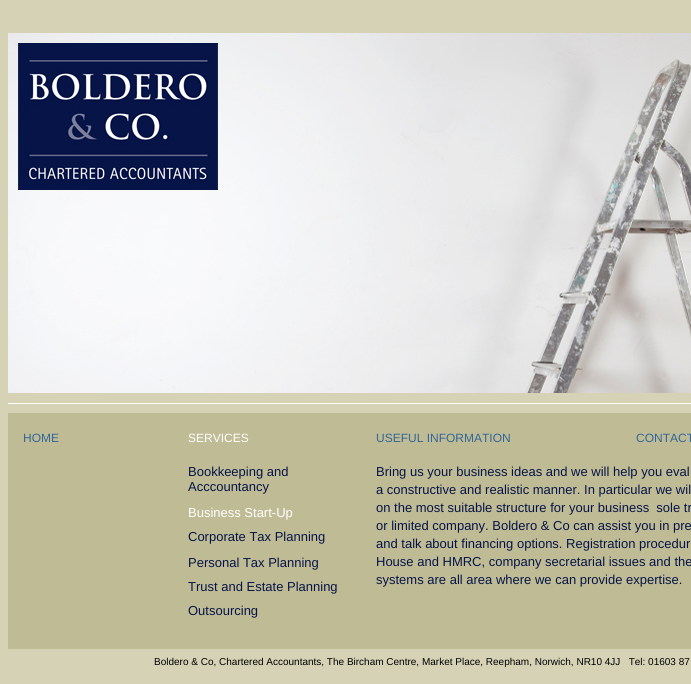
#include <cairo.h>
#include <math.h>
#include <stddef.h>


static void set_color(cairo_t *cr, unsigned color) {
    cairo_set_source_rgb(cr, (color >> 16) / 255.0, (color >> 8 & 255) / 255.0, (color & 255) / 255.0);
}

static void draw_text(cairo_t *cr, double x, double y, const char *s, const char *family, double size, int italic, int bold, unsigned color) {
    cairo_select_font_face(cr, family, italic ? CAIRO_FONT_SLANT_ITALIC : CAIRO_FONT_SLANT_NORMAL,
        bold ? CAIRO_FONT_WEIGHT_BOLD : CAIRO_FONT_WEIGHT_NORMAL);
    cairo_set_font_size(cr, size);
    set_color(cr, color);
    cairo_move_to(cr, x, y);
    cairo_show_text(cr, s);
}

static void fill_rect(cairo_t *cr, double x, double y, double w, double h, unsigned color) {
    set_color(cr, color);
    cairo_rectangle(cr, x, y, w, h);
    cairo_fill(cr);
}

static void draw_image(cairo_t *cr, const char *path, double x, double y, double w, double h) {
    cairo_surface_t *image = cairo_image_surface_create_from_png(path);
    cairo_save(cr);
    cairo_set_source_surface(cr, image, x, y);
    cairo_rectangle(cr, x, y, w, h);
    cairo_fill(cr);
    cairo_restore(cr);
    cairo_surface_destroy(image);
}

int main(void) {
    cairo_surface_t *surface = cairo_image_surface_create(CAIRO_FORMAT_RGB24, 691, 684);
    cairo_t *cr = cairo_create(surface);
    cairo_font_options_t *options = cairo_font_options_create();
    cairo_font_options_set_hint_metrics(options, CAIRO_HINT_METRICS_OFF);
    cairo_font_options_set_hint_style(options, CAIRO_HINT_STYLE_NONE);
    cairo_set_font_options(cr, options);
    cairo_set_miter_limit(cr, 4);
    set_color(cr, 0xD6D2B6);
    cairo_paint(cr);
    draw_image(cr, "assets/img1.png", 8, 33, 683, 360);
    draw_image(cr, "assets/img2.png", 18, 43, 200, 147);
    fill_rect(cr, 8, 403, 683, 1, 0xFFFFFF);
    fill_rect(cr, 8, 413, 683, 236, 0xBFBB95);
    draw_text(cr, 23, 442, "HOME", "Liberation Sans", 12, 0, 0, 0x336699);
    draw_text(cr, 188, 442, "SERVICES", "Liberation Sans", 12, 0, 0, 0xFFFFFF);
    draw_text(cr, 188, 476, "Bookkeeping and", "Liberation Sans", 13, 0, 0, 0x061447);
    draw_text(cr, 188, 491, "Acccountancy", "Liberation Sans", 13, 0, 0, 0x061447);
    draw_text(cr, 188, 517, "Business Start-Up", "Liberation Sans", 13, 0, 0, 0xFFFFFF);
    draw_text(cr, 188, 541, "Corporate Tax Planning", "Liberation Sans", 13, 0, 0, 0x061447);
    draw_text(cr, 188, 567, "Personal Tax Planning", "Liberation Sans", 13, 0, 0, 0x061447);
    draw_text(cr, 188, 591, "Trust and Estate Planning", "Liberation Sans", 13, 0, 0, 0x061447);
    draw_text(cr, 188, 615, "Outsourcing", "Liberation Sans", 13, 0, 0, 0x061447);
    draw_text(cr, 376, 442, "USEFUL INFORMATION", "Liberation Sans", 12, 0, 0, 0x336699);
    draw_text(cr, 636, 442, "CONTACT", "Liberation Sans", 12, 0, 0, 0x336699);
    draw_text(cr, 376, 476, "Bring us your business ideas and we will help you eval", "Liberation Sans", 13, 0, 0, 0x061447);
    draw_text(cr, 376, 494, "a constructive and realistic manner. In particular we wil", "Liberation Sans", 13, 0, 0, 0x061447);
    draw_text(cr, 376, 512, "on the most suitable structure for your business  sole tr", "Liberation Sans", 13, 0, 0, 0x061447);
    draw_text(cr, 376, 530, "or limited company. Boldero & Co can assist you in pre", "Liberation Sans", 13, 0, 0, 0x061447);
    draw_text(cr, 376, 548, "and talk about financing options. Registration procedur", "Liberation Sans", 13, 0, 0, 0x061447);
    draw_text(cr, 376, 566, "House and HMRC, company secretarial issues and the", "Liberation Sans", 13, 0, 0, 0x061447);
    draw_text(cr, 376, 584, "systems are all area where we can provide expertise.", "Liberation Sans", 13, 0, 0, 0x061447);
    draw_text(cr, 154, 665, "Boldero & Co, Chartered Accountants, The Bircham Centre, Market Place, Reepham, Norwich, NR10 4JJ   Tel: 01603 87", "Liberation Sans", 10, 0, 0, 0x000000);
    cairo_surface_write_to_png(surface, "output.png");
    cairo_font_options_destroy(options);
    cairo_destroy(cr);
    cairo_surface_destroy(surface);
    return 0;
}
